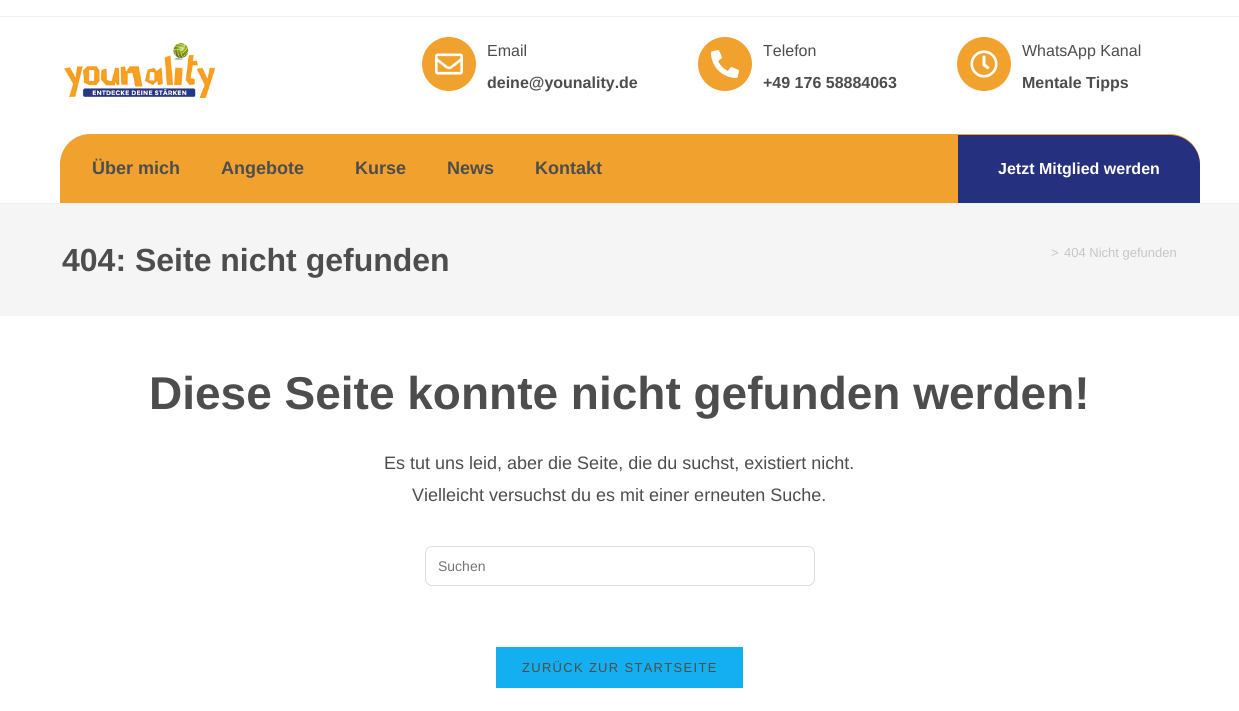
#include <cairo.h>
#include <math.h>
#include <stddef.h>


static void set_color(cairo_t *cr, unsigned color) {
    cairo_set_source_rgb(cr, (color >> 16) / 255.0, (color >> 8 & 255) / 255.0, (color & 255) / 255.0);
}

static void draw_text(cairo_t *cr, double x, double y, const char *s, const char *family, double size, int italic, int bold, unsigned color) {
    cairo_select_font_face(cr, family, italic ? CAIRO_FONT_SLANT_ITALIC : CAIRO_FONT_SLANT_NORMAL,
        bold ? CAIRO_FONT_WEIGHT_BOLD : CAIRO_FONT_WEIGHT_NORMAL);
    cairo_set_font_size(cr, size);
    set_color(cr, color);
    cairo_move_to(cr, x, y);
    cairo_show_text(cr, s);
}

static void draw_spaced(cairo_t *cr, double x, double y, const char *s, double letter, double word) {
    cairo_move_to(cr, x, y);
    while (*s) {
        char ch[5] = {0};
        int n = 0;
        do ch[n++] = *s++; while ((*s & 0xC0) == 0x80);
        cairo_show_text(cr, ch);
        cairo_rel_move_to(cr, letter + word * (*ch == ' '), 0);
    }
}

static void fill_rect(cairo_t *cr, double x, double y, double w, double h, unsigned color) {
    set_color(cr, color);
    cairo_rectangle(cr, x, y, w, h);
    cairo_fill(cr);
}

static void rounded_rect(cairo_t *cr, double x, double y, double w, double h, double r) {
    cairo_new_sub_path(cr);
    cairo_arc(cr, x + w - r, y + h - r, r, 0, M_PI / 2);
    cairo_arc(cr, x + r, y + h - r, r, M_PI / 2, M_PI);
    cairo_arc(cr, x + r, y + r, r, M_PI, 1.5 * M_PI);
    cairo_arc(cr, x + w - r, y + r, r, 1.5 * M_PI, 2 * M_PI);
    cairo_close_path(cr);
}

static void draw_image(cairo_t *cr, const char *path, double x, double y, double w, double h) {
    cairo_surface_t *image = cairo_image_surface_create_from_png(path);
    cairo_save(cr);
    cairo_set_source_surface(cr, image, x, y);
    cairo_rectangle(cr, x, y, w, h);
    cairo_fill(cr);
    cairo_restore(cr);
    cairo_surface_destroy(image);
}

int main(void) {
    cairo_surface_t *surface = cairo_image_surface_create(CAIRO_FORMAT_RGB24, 1239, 711);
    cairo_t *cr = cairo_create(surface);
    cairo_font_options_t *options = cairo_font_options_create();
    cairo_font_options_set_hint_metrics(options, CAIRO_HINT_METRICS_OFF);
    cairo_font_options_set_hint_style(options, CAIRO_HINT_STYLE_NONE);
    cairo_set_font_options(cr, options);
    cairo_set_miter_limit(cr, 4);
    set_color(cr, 0xFFFFFF);
    cairo_paint(cr);
    fill_rect(cr, 0, 16, 1239, 1, 0xF1F1F1);
    fill_rect(cr, 0, 203, 1239, 1, 0xF1F1F1);
    draw_image(cr, "assets/img1.png", 64, 42, 152, 56);
    set_color(cr, 0xF1A12E);
    cairo_arc(cr, 449, 64, 27, 0, 2 * M_PI);
    cairo_fill(cr);
    draw_image(cr, "assets/img2.png", 435, 53, 28, 22);
    draw_text(cr, 487, 56, "Email", "Liberation Sans", 16, 0, 0, 0x4D4D4D);
    draw_text(cr, 487, 88, "deine@younality.de", "Liberation Sans", 16, 0, 1, 0x4D4D4D);
    set_color(cr, 0xF1A12E);
    cairo_new_path(cr);
    cairo_arc(cr, 725, 64, 27, 0, 2 * M_PI);
    cairo_fill(cr);
    draw_image(cr, "assets/img3.png", 711, 50, 28, 28);
    draw_text(cr, 763, 56, "Telefon", "Liberation Sans", 16, 0, 0, 0x4D4D4D);
    draw_text(cr, 763, 88, "+49 176 58884063", "Liberation Sans", 16, 0, 1, 0x4D4D4D);
    set_color(cr, 0xF1A12E);
    cairo_new_path(cr);
    cairo_arc(cr, 984, 64, 27, 0, 2 * M_PI);
    cairo_fill(cr);
    draw_image(cr, "assets/img4.png", 970, 50, 28, 28);
    draw_text(cr, 1022, 56, "WhatsApp Kanal", "Liberation Sans", 16, 0, 0, 0x4D4D4D);
    draw_text(cr, 1022, 88, "Mentale Tipps", "Liberation Sans", 16, 0, 1, 0x4D4D4D);
    set_color(cr, 0xF1A12E);
    cairo_new_path(cr);
    cairo_move_to(cr, 90, 134);
    cairo_line_to(cr, 1170, 134);
    cairo_curve_to(cr, 1186.5, 134, 1200, 147.5, 1200, 164);
    cairo_line_to(cr, 1200, 203);
    cairo_line_to(cr, 60, 203);
    cairo_line_to(cr, 60, 164);
    cairo_curve_to(cr, 60, 147.5, 73.5, 134, 90, 134);
    cairo_close_path(cr);
    cairo_fill(cr);
    draw_text(cr, 92, 174, "Über mich", "Liberation Sans", 18, 0, 1, 0x4D4D4D);
    draw_text(cr, 221, 174, "Angebote", "Liberation Sans", 18, 0, 1, 0x4D4D4D);
    draw_text(cr, 355, 174, "Kurse", "Liberation Sans", 18, 0, 1, 0x4D4D4D);
    draw_text(cr, 447, 174, "News", "Liberation Sans", 18, 0, 1, 0x4D4D4D);
    draw_text(cr, 535, 174, "Kontakt", "Liberation Sans", 18, 0, 1, 0x4D4D4D);
    set_color(cr, 0x25317F);
    cairo_new_path(cr);
    cairo_move_to(cr, 958, 135);
    cairo_line_to(cr, 1170, 135);
    cairo_curve_to(cr, 1186.5, 135, 1200, 148.5, 1200, 165);
    cairo_line_to(cr, 1200, 203);
    cairo_line_to(cr, 958, 203);
    cairo_close_path(cr);
    cairo_fill(cr);
    draw_text(cr, 998, 174, "Jetzt Mitglied werden", "Liberation Sans", 16, 0, 1, 0xFFFFFF);
    fill_rect(cr, 0, 204, 1239, 112, 0xF5F5F5);
    draw_text(cr, 62, 271, "404: Seite nicht gefunden", "Liberation Sans", 32, 0, 1, 0x4D4D4D);
    draw_text(cr, 1051, 257, ">", "Liberation Sans", 13, 0, 0, 0xC6C6C6);
    draw_text(cr, 1064, 257, "404 Nicht gefunden", "Liberation Sans", 13, 0, 0, 0xC6C6C6);
    draw_text(cr, 149, 409, "Diese Seite konnte nicht gefunden werden!", "Liberation Sans", 46, 0, 1, 0x4D4D4D);
    draw_text(cr, 384, 469, "Es tut uns leid, aber die Seite, die du suchst, existiert nicht.", "Liberation Sans", 18, 0, 0, 0x4D4D4D);
    draw_text(cr, 412, 501, "Vielleicht versuchst du es mit einer erneuten Suche.", "Liberation Sans", 18, 0, 0, 0x4D4D4D);
    rounded_rect(cr, 425.5, 546.5, 389, 39, 6.5);
    set_color(cr, 0xDDDDDD);
    cairo_set_line_width(cr, 1);
    cairo_stroke(cr);
    draw_text(cr, 438, 571, "Suchen", "Liberation Sans", 14, 0, 0, 0x757575);
    fill_rect(cr, 496, 647, 247, 41, 0x13AFF0);
    cairo_set_font_size(cr, 13);
    set_color(cr, 0x4D4D4D);
    draw_spaced(cr, 522, 672, "ZURÜCK ZUR STARTSEITE", 1.3, 0);
    cairo_surface_write_to_png(surface, "output.png");
    cairo_font_options_destroy(options);
    cairo_destroy(cr);
    cairo_surface_destroy(surface);
    return 0;
}
